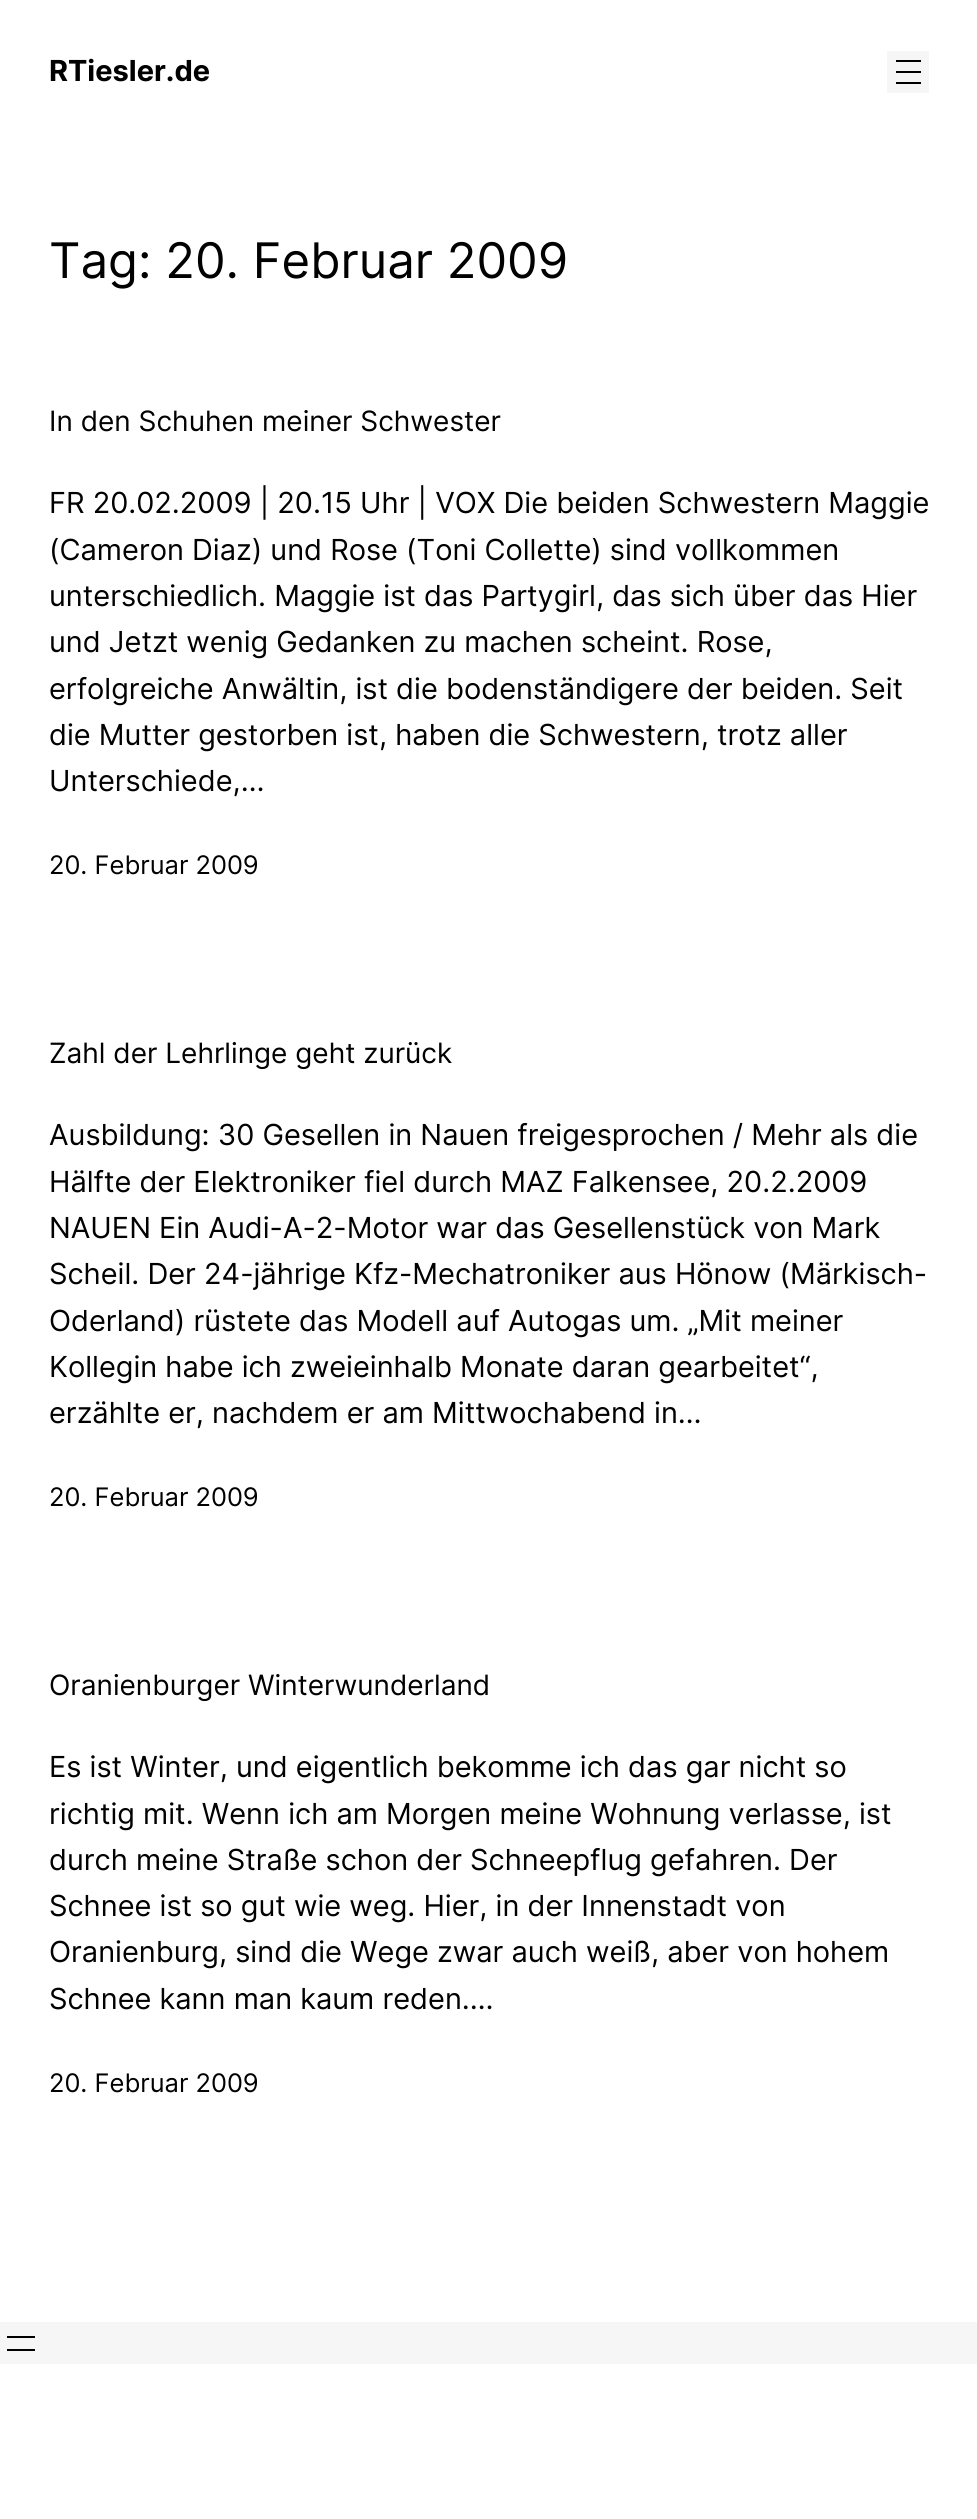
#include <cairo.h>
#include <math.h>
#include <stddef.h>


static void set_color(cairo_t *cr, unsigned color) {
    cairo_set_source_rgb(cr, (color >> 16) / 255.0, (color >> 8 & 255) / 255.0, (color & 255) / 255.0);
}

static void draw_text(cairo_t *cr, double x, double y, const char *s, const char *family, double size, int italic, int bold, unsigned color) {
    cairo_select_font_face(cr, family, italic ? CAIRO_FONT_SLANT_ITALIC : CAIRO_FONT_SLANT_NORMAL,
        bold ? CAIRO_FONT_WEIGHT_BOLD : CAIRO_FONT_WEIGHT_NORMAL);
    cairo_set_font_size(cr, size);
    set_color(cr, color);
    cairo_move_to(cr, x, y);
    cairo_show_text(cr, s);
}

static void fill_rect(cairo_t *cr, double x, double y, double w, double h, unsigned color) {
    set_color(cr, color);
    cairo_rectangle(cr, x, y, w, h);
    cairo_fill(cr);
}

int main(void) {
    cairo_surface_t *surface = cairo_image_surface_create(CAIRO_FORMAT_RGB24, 977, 2519);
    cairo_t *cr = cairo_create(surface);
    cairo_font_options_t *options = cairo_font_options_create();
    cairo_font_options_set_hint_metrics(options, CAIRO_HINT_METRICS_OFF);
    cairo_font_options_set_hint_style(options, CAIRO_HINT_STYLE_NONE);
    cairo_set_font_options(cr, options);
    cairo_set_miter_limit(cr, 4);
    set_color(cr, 0xFFFFFF);
    cairo_paint(cr);
    draw_text(cr, 49, 81, "RTiesler.de", "Inter", 28.95, 0, 1, 0x000000);
    fill_rect(cr, 887, 51, 42, 42, 0xF6F6F6);
    fill_rect(cr, 896, 60, 25, 2, 0x000000);
    fill_rect(cr, 896, 71, 25, 2, 0x000000);
    fill_rect(cr, 896, 82, 25, 2, 0x000000);
    draw_text(cr, 49, 278, "Tag: 20. Februar 2009", "Inter", 49, 0, 0, 0x000000);
    draw_text(cr, 49, 431, "In den Schuhen meiner Schwester", "Inter", 28, 0, 0, 0x000000);
    draw_text(cr, 49, 513, "FR 20.02.2009 | 20.15 Uhr | VOX Die beiden Schwestern Maggie", "Inter", 28.95, 0, 0, 0x000000);
    draw_text(cr, 49, 560, "(Cameron Diaz) und Rose (Toni Collette) sind vollkommen", "Inter", 28.95, 0, 0, 0x000000);
    draw_text(cr, 49, 606, "unterschiedlich. Maggie ist das Partygirl, das sich über das Hier", "Inter", 28.95, 0, 0, 0x000000);
    draw_text(cr, 49, 652, "und Jetzt wenig Gedanken zu machen scheint. Rose,", "Inter", 28.95, 0, 0, 0x000000);
    draw_text(cr, 49, 699, "erfolgreiche Anwältin, ist die bodenständigere der beiden. Seit", "Inter", 28.95, 0, 0, 0x000000);
    draw_text(cr, 49, 745, "die Mutter gestorben ist, haben die Schwestern, trotz aller", "Inter", 28.95, 0, 0, 0x000000);
    draw_text(cr, 49, 791, "Unterschiede,…", "Inter", 28.95, 0, 0, 0x000000);
    draw_text(cr, 49, 874, "20. Februar 2009", "Inter", 25.5, 0, 0, 0x000000);
    draw_text(cr, 49, 1063, "Zahl der Lehrlinge geht zurück", "Inter", 28, 0, 0, 0x000000);
    draw_text(cr, 49, 1145, "Ausbildung: 30 Gesellen in Nauen freigesprochen / Mehr als die", "Inter", 28.95, 0, 0, 0x000000);
    draw_text(cr, 49, 1192, "Hälfte der Elektroniker fiel durch MAZ Falkensee, 20.2.2009", "Inter", 28.95, 0, 0, 0x000000);
    draw_text(cr, 49, 1238, "NAUEN Ein Audi-A-2-Motor war das Gesellenstück von Mark", "Inter", 28.95, 0, 0, 0x000000);
    draw_text(cr, 49, 1284, "Scheil. Der 24-jährige Kfz-Mechatroniker aus Hönow (Märkisch-", "Inter", 28.95, 0, 0, 0x000000);
    draw_text(cr, 49, 1331, "Oderland) rüstete das Modell auf Autogas um. „Mit meiner", "Inter", 28.95, 0, 0, 0x000000);
    draw_text(cr, 49, 1377, "Kollegin habe ich zweieinhalb Monate daran gearbeitet“,", "Inter", 28.95, 0, 0, 0x000000);
    draw_text(cr, 49, 1423, "erzählte er, nachdem er am Mittwochabend in…", "Inter", 28.95, 0, 0, 0x000000);
    draw_text(cr, 49, 1506, "20. Februar 2009", "Inter", 25.5, 0, 0, 0x000000);
    draw_text(cr, 49, 1695, "Oranienburger Winterwunderland", "Inter", 28, 0, 0, 0x000000);
    draw_text(cr, 49, 1777, "Es ist Winter, und eigentlich bekomme ich das gar nicht so", "Inter", 28.95, 0, 0, 0x000000);
    draw_text(cr, 49, 1824, "richtig mit. Wenn ich am Morgen meine Wohnung verlasse, ist", "Inter", 28.95, 0, 0, 0x000000);
    draw_text(cr, 49, 1870, "durch meine Straße schon der Schneepflug gefahren. Der", "Inter", 28.95, 0, 0, 0x000000);
    draw_text(cr, 49, 1916, "Schnee ist so gut wie weg. Hier, in der Innenstadt von", "Inter", 28.95, 0, 0, 0x000000);
    draw_text(cr, 49, 1962, "Oranienburg, sind die Wege zwar auch weiß, aber von hohem", "Inter", 28.95, 0, 0, 0x000000);
    draw_text(cr, 49, 2009, "Schnee kann man kaum reden.…", "Inter", 28.95, 0, 0, 0x000000);
    draw_text(cr, 49, 2092, "20. Februar 2009", "Inter", 25.5, 0, 0, 0x000000);
    fill_rect(cr, 0, 2322, 977, 42, 0xF6F6F6);
    fill_rect(cr, 7, 2336, 28, 2, 0x000000);
    fill_rect(cr, 7, 2349, 28, 2, 0x000000);
    cairo_surface_write_to_png(surface, "output.png");
    cairo_font_options_destroy(options);
    cairo_destroy(cr);
    cairo_surface_destroy(surface);
    return 0;
}
